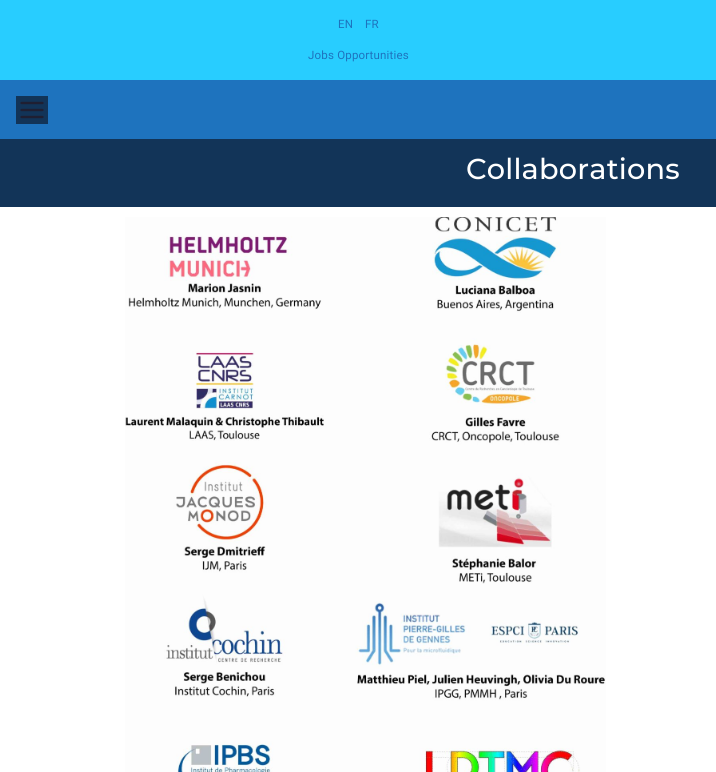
#include <cairo.h>
#include <math.h>
#include <stddef.h>


static void set_color(cairo_t *cr, unsigned color) {
    cairo_set_source_rgb(cr, (color >> 16) / 255.0, (color >> 8 & 255) / 255.0, (color & 255) / 255.0);
}

static void draw_spaced(cairo_t *cr, double x, double y, const char *s, double letter, double word) {
    cairo_move_to(cr, x, y);
    while (*s) {
        char ch[5] = {0};
        int n = 0;
        do ch[n++] = *s++; while ((*s & 0xC0) == 0x80);
        cairo_show_text(cr, ch);
        cairo_rel_move_to(cr, letter + word * (*ch == ' '), 0);
    }
}

static void fill_rect(cairo_t *cr, double x, double y, double w, double h, unsigned color) {
    set_color(cr, color);
    cairo_rectangle(cr, x, y, w, h);
    cairo_fill(cr);
}

static void draw_image(cairo_t *cr, const char *path, double x, double y, double w, double h) {
    cairo_surface_t *image = cairo_image_surface_create_from_png(path);
    cairo_save(cr);
    cairo_set_source_surface(cr, image, x, y);
    cairo_rectangle(cr, x, y, w, h);
    cairo_fill(cr);
    cairo_restore(cr);
    cairo_surface_destroy(image);
}

int main(void) {
    cairo_surface_t *surface = cairo_image_surface_create(CAIRO_FORMAT_RGB24, 716, 772);
    cairo_t *cr = cairo_create(surface);
    cairo_font_options_t *options = cairo_font_options_create();
    cairo_font_options_set_hint_metrics(options, CAIRO_HINT_METRICS_OFF);
    cairo_font_options_set_hint_style(options, CAIRO_HINT_STYLE_NONE);
    cairo_set_font_options(cr, options);
    cairo_set_miter_limit(cr, 4);
    set_color(cr, 0x123458);
    cairo_paint(cr);
    fill_rect(cr, 0, 80, 716, 59, 0x1E73BE);
    fill_rect(cr, 0, 0, 716, 80, 0x28CDFF);
    cairo_select_font_face(cr, "Roboto", CAIRO_FONT_SLANT_NORMAL, CAIRO_FONT_WEIGHT_NORMAL);
    cairo_set_font_size(cr, 11.5);
    set_color(cr, 0x1E73BE);
    draw_spaced(cr, 338, 28, "EN", 0.2, 0);
    draw_spaced(cr, 365, 28, "FR", 0.2, 0);
    draw_spaced(cr, 308, 59, "Jobs Opportunities", 0.2, 0);
    fill_rect(cr, 16, 96, 32, 28, 0x123458);
    draw_image(cr, "assets/img1.png", 20, 101, 24, 18);
    cairo_select_font_face(cr, "Montserrat Medium", CAIRO_FONT_SLANT_NORMAL, CAIRO_FONT_WEIGHT_NORMAL);
    cairo_set_font_size(cr, 28.75);
    set_color(cr, 0xFFFFFF);
    draw_spaced(cr, 466, 179, "Collaborations", 0.2, 0);
    fill_rect(cr, 0, 207, 716, 565, 0xFFFFFF);
    draw_image(cr, "assets/img2.png", 125, 217, 481, 555);
    cairo_surface_write_to_png(surface, "output.png");
    cairo_font_options_destroy(options);
    cairo_destroy(cr);
    cairo_surface_destroy(surface);
    return 0;
}
